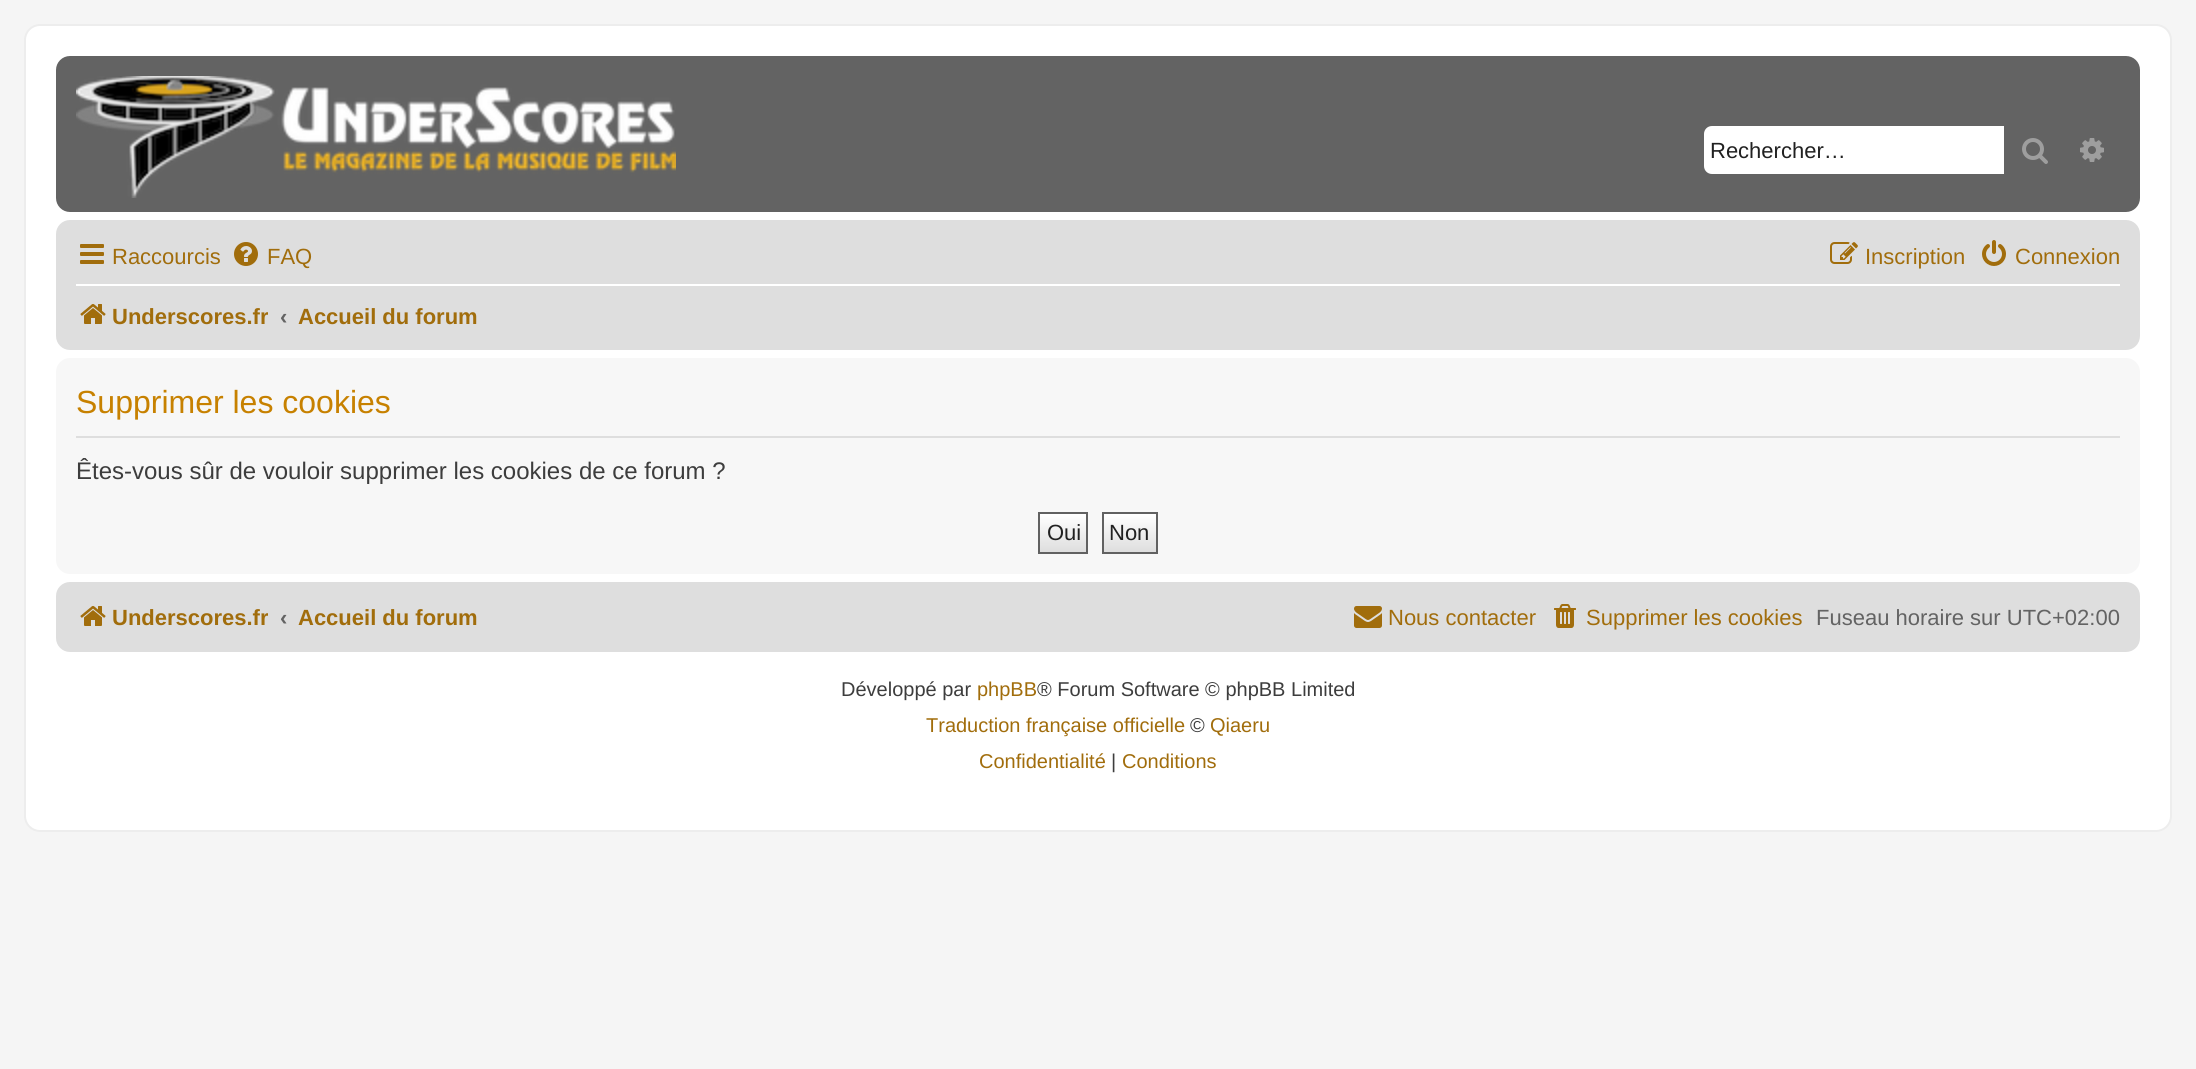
#include <cairo.h>
#include <math.h>
#include <stddef.h>


static void set_color(cairo_t *cr, unsigned color) {
    cairo_set_source_rgb(cr, (color >> 16) / 255.0, (color >> 8 & 255) / 255.0, (color & 255) / 255.0);
}

static void draw_text(cairo_t *cr, double x, double y, const char *s, const char *family, double size, int italic, int bold, unsigned color) {
    cairo_select_font_face(cr, family, italic ? CAIRO_FONT_SLANT_ITALIC : CAIRO_FONT_SLANT_NORMAL,
        bold ? CAIRO_FONT_WEIGHT_BOLD : CAIRO_FONT_WEIGHT_NORMAL);
    cairo_set_font_size(cr, size);
    set_color(cr, color);
    cairo_move_to(cr, x, y);
    cairo_show_text(cr, s);
}

static void fill_rect(cairo_t *cr, double x, double y, double w, double h, unsigned color) {
    set_color(cr, color);
    cairo_rectangle(cr, x, y, w, h);
    cairo_fill(cr);
}

static void rounded_rect(cairo_t *cr, double x, double y, double w, double h, double r) {
    cairo_new_sub_path(cr);
    cairo_arc(cr, x + w - r, y + h - r, r, 0, M_PI / 2);
    cairo_arc(cr, x + r, y + h - r, r, M_PI / 2, M_PI);
    cairo_arc(cr, x + r, y + r, r, M_PI, 1.5 * M_PI);
    cairo_arc(cr, x + w - r, y + r, r, 1.5 * M_PI, 2 * M_PI);
    cairo_close_path(cr);
}

static void draw_image(cairo_t *cr, const char *path, double x, double y, double w, double h) {
    cairo_surface_t *image = cairo_image_surface_create_from_png(path);
    cairo_save(cr);
    cairo_set_source_surface(cr, image, x, y);
    cairo_rectangle(cr, x, y, w, h);
    cairo_fill(cr);
    cairo_restore(cr);
    cairo_surface_destroy(image);
}

int main(void) {
    cairo_surface_t *surface = cairo_image_surface_create(CAIRO_FORMAT_RGB24, 2196, 1069);
    cairo_t *cr = cairo_create(surface);
    cairo_font_options_t *options = cairo_font_options_create();
    cairo_font_options_set_hint_metrics(options, CAIRO_HINT_METRICS_OFF);
    cairo_font_options_set_hint_style(options, CAIRO_HINT_STYLE_NONE);
    cairo_set_font_options(cr, options);
    cairo_set_miter_limit(cr, 4);
    cairo_pattern_t *gradient;
    set_color(cr, 0xF5F5F5);
    cairo_paint(cr);
    set_color(cr, 0xFFFFFF);
    rounded_rect(cr, 25, 25, 2146, 806, 15);
    cairo_fill_preserve(cr);
    set_color(cr, 0xEDEDED);
    cairo_stroke(cr);
    set_color(cr, 0x636363);
    rounded_rect(cr, 56, 56, 2084, 156, 14);
    cairo_fill(cr);
    draw_image(cr, "assets/img1.png", 76, 76, 600, 122);
    set_color(cr, 0xFFFFFF);
    cairo_new_path(cr);
    cairo_move_to(cr, 1712, 126);
    cairo_line_to(cr, 2004, 126);
    cairo_line_to(cr, 2004, 174);
    cairo_line_to(cr, 1712, 174);
    cairo_curve_to(cr, 1707.5, 174, 1704, 170.5, 1704, 166);
    cairo_line_to(cr, 1704, 134);
    cairo_curve_to(cr, 1704, 129.5, 1707.5, 126, 1712, 126);
    cairo_close_path(cr);
    cairo_fill(cr);
    draw_text(cr, 1710, 158, "Rechercher…", "Liberation Sans", 22, 0, 0, 0x212121);
    draw_image(cr, "assets/img2.png", 2022, 138, 26, 26);
    draw_image(cr, "assets/img3.png", 2080, 138, 24, 24);
    set_color(cr, 0xDEDEDE);
    rounded_rect(cr, 56, 220, 2084, 130, 14);
    cairo_fill(cr);
    draw_image(cr, "assets/img4.png", 80, 244, 24, 20);
    draw_text(cr, 112, 264, "Raccourcis", "Liberation Sans", 22, 0, 0, 0xA16D0C);
    draw_image(cr, "assets/img5.png", 234, 242, 24, 24);
    draw_text(cr, 267, 264, "FAQ", "Liberation Sans", 22, 0, 0, 0xA16D0C);
    draw_image(cr, "assets/img6.png", 1830, 242, 28, 22);
    draw_text(cr, 1865, 264, "Inscription", "Liberation Sans", 22, 0, 0, 0xA16D0C);
    draw_image(cr, "assets/img7.png", 1982, 240, 24, 26);
    draw_text(cr, 2015, 264, "Connexion", "Liberation Sans", 22, 0, 0, 0xA16D0C);
    fill_rect(cr, 76, 284, 2044, 2, 0xFFFFFF);
    draw_image(cr, "assets/img8.png", 80, 304, 26, 20);
    cairo_save(cr);
    cairo_rectangle(cr, 76, 292, 192, 48);
    cairo_clip(cr);
    draw_text(cr, 112, 324, "Underscores.fr", "Liberation Sans", 22, 0, 1, 0xA16D0C);
    cairo_restore(cr);
    draw_text(cr, 280, 324, "‹", "Liberation Sans", 22, 0, 1, 0x636363);
    draw_text(cr, 298, 324, "Accueil du forum", "Liberation Sans", 22, 0, 1, 0xA16D0C);
    set_color(cr, 0xF7F7F7);
    rounded_rect(cr, 56, 358, 2084, 216, 14);
    cairo_fill(cr);
    fill_rect(cr, 76, 436, 2044, 2, 0xDEDEDE);
    draw_text(cr, 76, 413, "Supprimer les cookies", "Liberation Sans", 32, 0, 0, 0xC78100);
    draw_text(cr, 76, 479, "Êtes-vous sûr de vouloir supprimer les cookies de ce forum ?", "Liberation Sans", 24, 0, 0, 0x3D3D3D);
    gradient = cairo_pattern_create_linear(1063, 514, 1063, 552);
    cairo_pattern_add_color_stop_rgba(gradient, 0, 1, 1, 1, 1);
    cairo_pattern_add_color_stop_rgba(gradient, 1, 0.871, 0.871, 0.871, 1);
    cairo_set_source(cr, gradient);
    cairo_pattern_destroy(gradient);
    cairo_rectangle(cr, 1040, 514, 46, 38);
    cairo_fill(cr);
    cairo_rectangle(cr, 1039, 513, 48, 40);
    set_color(cr, 0x616161);
    cairo_stroke(cr);
    draw_text(cr, 1047, 540, "Oui", "Liberation Sans", 22, 0, 0, 0x212121);
    gradient = cairo_pattern_create_linear(1130, 514, 1130, 552);
    cairo_pattern_add_color_stop_rgba(gradient, 0, 1, 1, 1, 1);
    cairo_pattern_add_color_stop_rgba(gradient, 1, 0.871, 0.871, 0.871, 1);
    cairo_set_source(cr, gradient);
    cairo_pattern_destroy(gradient);
    cairo_rectangle(cr, 1104, 514, 52, 38);
    cairo_fill(cr);
    cairo_rectangle(cr, 1103, 513, 54, 40);
    set_color(cr, 0x616161);
    cairo_stroke(cr);
    draw_text(cr, 1109, 540, "Non", "Liberation Sans", 22, 0, 0, 0x212121);
    set_color(cr, 0xDEDEDE);
    rounded_rect(cr, 56, 582, 2084, 70, 14);
    cairo_fill(cr);
    draw_image(cr, "assets/img8.png", 80, 606, 26, 20);
    cairo_save(cr);
    cairo_rectangle(cr, 76, 594, 192, 48);
    cairo_clip(cr);
    draw_text(cr, 112, 625, "Underscores.fr", "Liberation Sans", 22, 0, 1, 0xA16D0C);
    cairo_restore(cr);
    draw_text(cr, 280, 625, "‹", "Liberation Sans", 22, 0, 1, 0x636363);
    draw_text(cr, 298, 625, "Accueil du forum", "Liberation Sans", 22, 0, 1, 0xA16D0C);
    draw_image(cr, "assets/img9.png", 1354, 606, 28, 22);
    draw_text(cr, 1388, 625, "Nous contacter", "Liberation Sans", 22, 0, 0, 0xA16D0C);
    draw_image(cr, "assets/img10.png", 1554, 604, 22, 24);
    draw_text(cr, 1586, 625, "Supprimer les cookies", "Liberation Sans", 22, 0, 0, 0xA16D0C);
    draw_text(cr, 1816, 625, "Fuseau horaire sur UTC+02:00", "Liberation Sans", 22, 0, 0, 0x636363);
    draw_text(cr, 841, 696, "Développé par", "Liberation Sans", 20, 0, 0, 0x3D3D3D);
    draw_text(cr, 977, 696, "phpBB", "Liberation Sans", 20, 0, 0, 0xA16D0C);
    draw_text(cr, 1037, 696, "® Forum Software © phpBB Limited", "Liberation Sans", 20, 0, 0, 0x3D3D3D);
    draw_text(cr, 926, 732, "Traduction française officielle", "Liberation Sans", 20, 0, 0, 0xA16D0C);
    draw_text(cr, 1190, 732, "©", "Liberation Sans", 20, 0, 0, 0x3D3D3D);
    draw_text(cr, 1210, 732, "Qiaeru", "Liberation Sans", 20, 0, 0, 0xA16D0C);
    draw_text(cr, 979, 768, "Confidentialité", "Liberation Sans", 20, 0, 0, 0xA16D0C);
    draw_text(cr, 1111, 768, "|", "Liberation Sans", 20, 0, 0, 0x3D3D3D);
    draw_text(cr, 1122, 768, "Conditions", "Liberation Sans", 20, 0, 0, 0xA16D0C);
    cairo_surface_write_to_png(surface, "output.png");
    cairo_font_options_destroy(options);
    cairo_destroy(cr);
    cairo_surface_destroy(surface);
    return 0;
}
